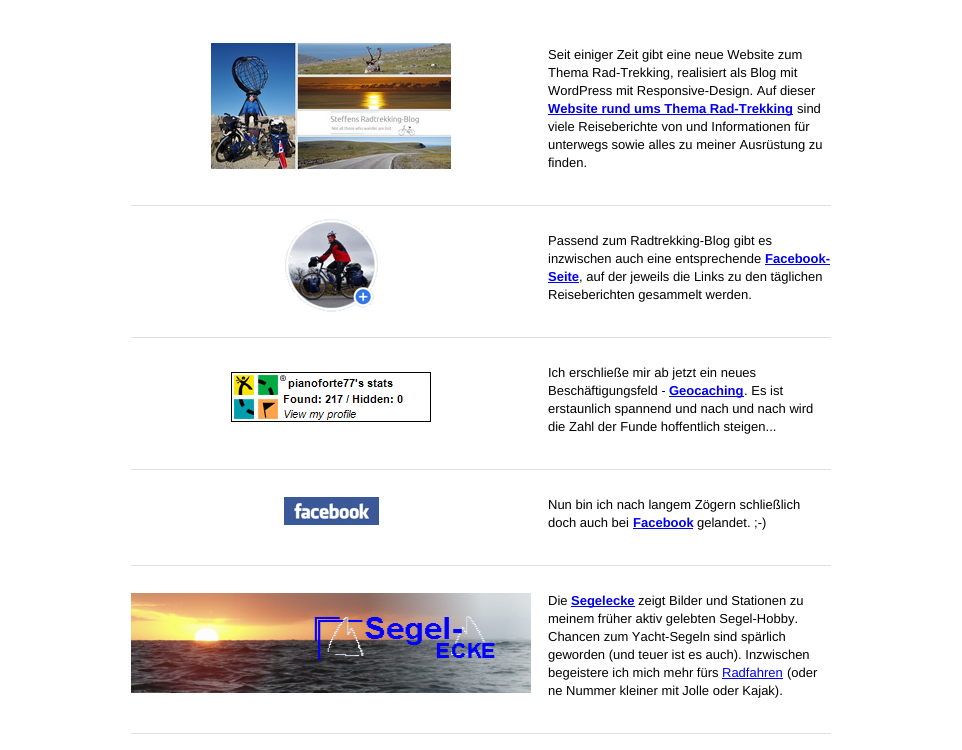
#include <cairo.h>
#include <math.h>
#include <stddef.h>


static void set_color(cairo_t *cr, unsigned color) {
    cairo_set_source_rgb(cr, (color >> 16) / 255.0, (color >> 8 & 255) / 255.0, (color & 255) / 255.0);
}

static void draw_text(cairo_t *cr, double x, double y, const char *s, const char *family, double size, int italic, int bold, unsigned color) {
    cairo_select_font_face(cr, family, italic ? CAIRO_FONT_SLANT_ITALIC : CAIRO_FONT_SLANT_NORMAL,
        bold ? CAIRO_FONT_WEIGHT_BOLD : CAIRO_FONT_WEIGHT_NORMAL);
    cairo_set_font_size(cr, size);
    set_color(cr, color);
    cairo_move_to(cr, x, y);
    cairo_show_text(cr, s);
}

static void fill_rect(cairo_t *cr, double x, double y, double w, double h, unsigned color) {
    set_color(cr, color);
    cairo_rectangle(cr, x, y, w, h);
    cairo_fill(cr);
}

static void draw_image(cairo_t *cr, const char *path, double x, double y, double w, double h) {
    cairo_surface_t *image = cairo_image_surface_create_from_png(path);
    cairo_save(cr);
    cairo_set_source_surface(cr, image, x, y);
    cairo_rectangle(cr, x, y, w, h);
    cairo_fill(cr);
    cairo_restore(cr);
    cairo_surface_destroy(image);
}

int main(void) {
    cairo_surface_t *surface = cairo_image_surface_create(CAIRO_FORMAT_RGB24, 962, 750);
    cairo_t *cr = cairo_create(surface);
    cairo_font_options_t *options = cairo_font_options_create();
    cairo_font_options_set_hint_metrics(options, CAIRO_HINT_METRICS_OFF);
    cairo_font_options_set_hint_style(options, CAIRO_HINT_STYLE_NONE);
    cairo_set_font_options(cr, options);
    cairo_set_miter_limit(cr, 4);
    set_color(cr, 0xFFFFFF);
    cairo_paint(cr);
    draw_image(cr, "assets/img1.png", 211, 43, 240, 126);
    draw_text(cr, 548, 59, "Seit einiger Zeit gibt eine neue Website zum", "Liberation Sans", 13, 0, 0, 0x000000);
    draw_text(cr, 548, 77, "Thema Rad-Trekking, realisiert als Blog mit", "Liberation Sans", 13, 0, 0, 0x000000);
    draw_text(cr, 548, 95, "WordPress mit Responsive-Design. Auf dieser", "Liberation Sans", 13, 0, 0, 0x000000);
    fill_rect(cr, 548, 114, 245, 1, 0x0000EE);
    draw_text(cr, 548, 113, "Website rund ums Thema Rad-Trekking", "Liberation Sans", 13, 0, 1, 0x0000EE);
    draw_text(cr, 797, 113, "sind", "Liberation Sans", 13, 0, 0, 0x000000);
    draw_text(cr, 548, 131, "viele Reiseberichte von und Informationen für", "Liberation Sans", 13, 0, 0, 0x000000);
    draw_text(cr, 548, 149, "unterwegs sowie alles zu meiner Ausrüstung zu", "Liberation Sans", 13, 0, 0, 0x000000);
    draw_text(cr, 548, 167, "finden.", "Liberation Sans", 13, 0, 0, 0x000000);
    fill_rect(cr, 131, 205, 700, 1, 0xDEDEDE);
    draw_image(cr, "assets/img2.png", 285, 219, 93, 93);
    draw_text(cr, 548, 245, "Passend zum Radtrekking-Blog gibt es", "Liberation Sans", 13, 0, 0, 0x000000);
    draw_text(cr, 548, 263, "inzwischen auch eine entsprechende", "Liberation Sans", 13, 0, 0, 0x000000);
    draw_text(cr, 765, 263, "Facebook-", "Liberation Sans", 13, 0, 1, 0x0000EE);
    fill_rect(cr, 765, 264, 65, 1, 0x0000EE);
    draw_text(cr, 548, 281, "Seite", "Liberation Sans", 13, 0, 1, 0x0000EE);
    draw_text(cr, 579, 281, ", auf der jeweils die Links zu den täglichen", "Liberation Sans", 13, 0, 0, 0x000000);
    fill_rect(cr, 548, 282, 31, 1, 0x0000EE);
    draw_text(cr, 548, 299, "Reiseberichten gesammelt werden.", "Liberation Sans", 13, 0, 0, 0x000000);
    fill_rect(cr, 131, 337, 700, 1, 0xDEDEDE);
    draw_image(cr, "assets/img3.png", 231, 372, 200, 50);
    draw_text(cr, 548, 377, "Ich erschließe mir ab jetzt ein neues", "Liberation Sans", 13, 0, 0, 0x000000);
    draw_text(cr, 548, 395, "Beschäftigungsfeld -", "Liberation Sans", 13, 0, 0, 0x000000);
    fill_rect(cr, 669, 396, 75, 1, 0x0000EE);
    draw_text(cr, 669, 395, "Geocaching", "Liberation Sans", 13, 0, 1, 0x0000EE);
    draw_text(cr, 744, 395, ". Es ist", "Liberation Sans", 13, 0, 0, 0x000000);
    draw_text(cr, 548, 413, "erstaunlich spannend und nach und nach wird", "Liberation Sans", 13, 0, 0, 0x000000);
    draw_text(cr, 548, 431, "die Zahl der Funde hoffentlich steigen...", "Liberation Sans", 13, 0, 0, 0x000000);
    fill_rect(cr, 131, 469, 700, 1, 0xDEDEDE);
    draw_image(cr, "assets/img4.png", 284, 497, 95, 28);
    draw_text(cr, 548, 509, "Nun bin ich nach langem Zögern schließlich", "Liberation Sans", 13, 0, 0, 0x000000);
    draw_text(cr, 548, 527, "doch auch bei", "Liberation Sans", 13, 0, 0, 0x000000);
    draw_text(cr, 633, 527, "Facebook", "Liberation Sans", 13, 0, 1, 0x0000EE);
    fill_rect(cr, 633, 528, 60, 1, 0x0000EE);
    draw_text(cr, 697, 527, "gelandet. ;-)", "Liberation Sans", 13, 0, 0, 0x000000);
    fill_rect(cr, 131, 565, 700, 1, 0xDEDEDE);
    draw_image(cr, "assets/img5.png", 131, 593, 400, 100);
    draw_text(cr, 548, 605, "Die", "Liberation Sans", 13, 0, 0, 0x000000);
    fill_rect(cr, 571, 606, 64, 1, 0x0000EE);
    draw_text(cr, 571, 605, "Segelecke", "Liberation Sans", 13, 0, 1, 0x0000EE);
    draw_text(cr, 638, 605, "zeigt Bilder und Stationen zu", "Liberation Sans", 13, 0, 0, 0x000000);
    draw_text(cr, 548, 623, "meinem früher aktiv gelebten Segel-Hobby.", "Liberation Sans", 13, 0, 0, 0x000000);
    draw_text(cr, 548, 641, "Chancen zum Yacht-Segeln sind spärlich", "Liberation Sans", 13, 0, 0, 0x000000);
    draw_text(cr, 548, 659, "geworden (und teuer ist es auch). Inzwischen", "Liberation Sans", 13, 0, 0, 0x000000);
    draw_text(cr, 548, 677, "begeistere ich mich mehr fürs", "Liberation Sans", 13, 0, 0, 0x000000);
    draw_text(cr, 722, 677, "Radfahren", "Liberation Sans", 13, 0, 0, 0x0000EE);
    fill_rect(cr, 722, 678, 61, 1, 0x0000EE);
    draw_text(cr, 787, 677, "(oder", "Liberation Sans", 13, 0, 0, 0x000000);
    draw_text(cr, 548, 695, "ne Nummer kleiner mit Jolle oder Kajak).", "Liberation Sans", 13, 0, 0, 0x000000);
    fill_rect(cr, 131, 733, 700, 1, 0xDEDEDE);
    cairo_surface_write_to_png(surface, "output.png");
    cairo_font_options_destroy(options);
    cairo_destroy(cr);
    cairo_surface_destroy(surface);
    return 0;
}
